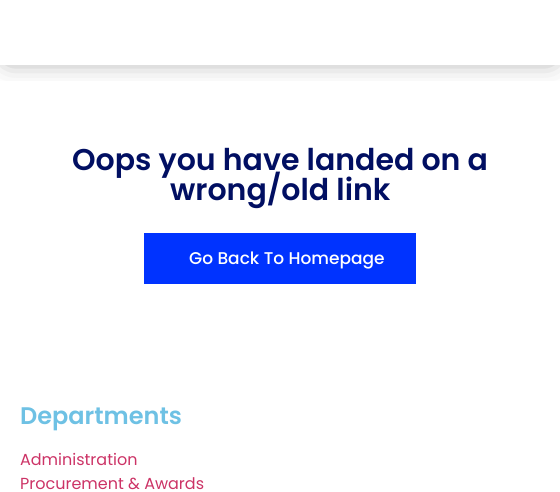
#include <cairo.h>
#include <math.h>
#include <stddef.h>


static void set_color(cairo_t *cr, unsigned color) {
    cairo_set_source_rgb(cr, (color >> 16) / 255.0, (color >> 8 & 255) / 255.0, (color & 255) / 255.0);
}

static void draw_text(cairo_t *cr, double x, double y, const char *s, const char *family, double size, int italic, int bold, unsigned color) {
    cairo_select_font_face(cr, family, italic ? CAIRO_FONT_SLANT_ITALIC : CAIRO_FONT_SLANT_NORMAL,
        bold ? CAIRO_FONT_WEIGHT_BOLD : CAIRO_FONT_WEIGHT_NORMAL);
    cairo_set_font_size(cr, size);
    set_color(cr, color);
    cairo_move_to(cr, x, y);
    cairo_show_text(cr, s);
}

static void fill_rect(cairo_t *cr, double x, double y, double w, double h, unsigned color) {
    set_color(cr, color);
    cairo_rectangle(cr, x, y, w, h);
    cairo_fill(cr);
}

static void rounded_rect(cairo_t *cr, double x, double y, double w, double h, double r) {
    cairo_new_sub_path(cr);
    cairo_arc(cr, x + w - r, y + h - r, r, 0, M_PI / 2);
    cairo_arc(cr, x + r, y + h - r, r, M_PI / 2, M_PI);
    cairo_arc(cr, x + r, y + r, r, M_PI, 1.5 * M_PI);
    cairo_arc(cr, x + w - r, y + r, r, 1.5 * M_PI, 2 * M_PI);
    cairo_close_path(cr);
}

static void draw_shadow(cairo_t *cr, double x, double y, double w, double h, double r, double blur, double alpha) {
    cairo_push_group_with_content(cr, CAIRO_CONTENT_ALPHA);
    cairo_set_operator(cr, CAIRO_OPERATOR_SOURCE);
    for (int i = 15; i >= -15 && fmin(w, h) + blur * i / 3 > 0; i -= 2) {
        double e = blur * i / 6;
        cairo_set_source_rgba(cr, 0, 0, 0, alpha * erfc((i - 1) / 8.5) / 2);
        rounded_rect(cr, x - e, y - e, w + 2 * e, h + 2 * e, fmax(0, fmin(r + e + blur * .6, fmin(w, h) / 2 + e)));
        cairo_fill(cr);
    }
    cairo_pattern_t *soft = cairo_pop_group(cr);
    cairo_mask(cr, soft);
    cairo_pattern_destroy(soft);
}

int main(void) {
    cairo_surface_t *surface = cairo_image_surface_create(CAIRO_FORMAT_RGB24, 560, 492);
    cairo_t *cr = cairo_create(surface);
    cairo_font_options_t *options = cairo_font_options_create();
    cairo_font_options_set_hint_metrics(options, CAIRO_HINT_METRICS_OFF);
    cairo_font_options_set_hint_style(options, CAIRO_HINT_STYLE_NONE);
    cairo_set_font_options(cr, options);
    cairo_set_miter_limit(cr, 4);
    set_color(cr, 0xFFFFFF);
    cairo_paint(cr);
    cairo_save(cr);
    cairo_rectangle(cr, 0, 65, 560, 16);
    cairo_clip(cr);
    set_color(cr, 0x000000);
    draw_shadow(cr, 8, 8, 544, 49, 0, 14, 0.5);
    cairo_restore(cr);
    draw_text(cr, 72, 170, "Oops you have landed on a", "Poppins SemiBold", 30, 0, 0, 0x010F62);
    draw_text(cr, 170, 200, "wrong/old link", "Poppins SemiBold", 30, 0, 0, 0x010F62);
    fill_rect(cr, 144, 233, 272, 51, 0x0033FF);
    draw_text(cr, 189, 264, "Go Back To Homepage", "Poppins Medium", 17, 0, 0, 0xFFFFFF);
    draw_text(cr, 20, 424, "Departments", "Poppins SemiBold", 24, 0, 0, 0x6EC1E4);
    draw_text(cr, 20, 465, "Administration", "Poppins", 16, 0, 0, 0xCC3366);
    draw_text(cr, 20, 489, "Procurement & Awards", "Poppins", 16, 0, 0, 0xCC3366);
    cairo_surface_write_to_png(surface, "output.png");
    cairo_font_options_destroy(options);
    cairo_destroy(cr);
    cairo_surface_destroy(surface);
    return 0;
}
